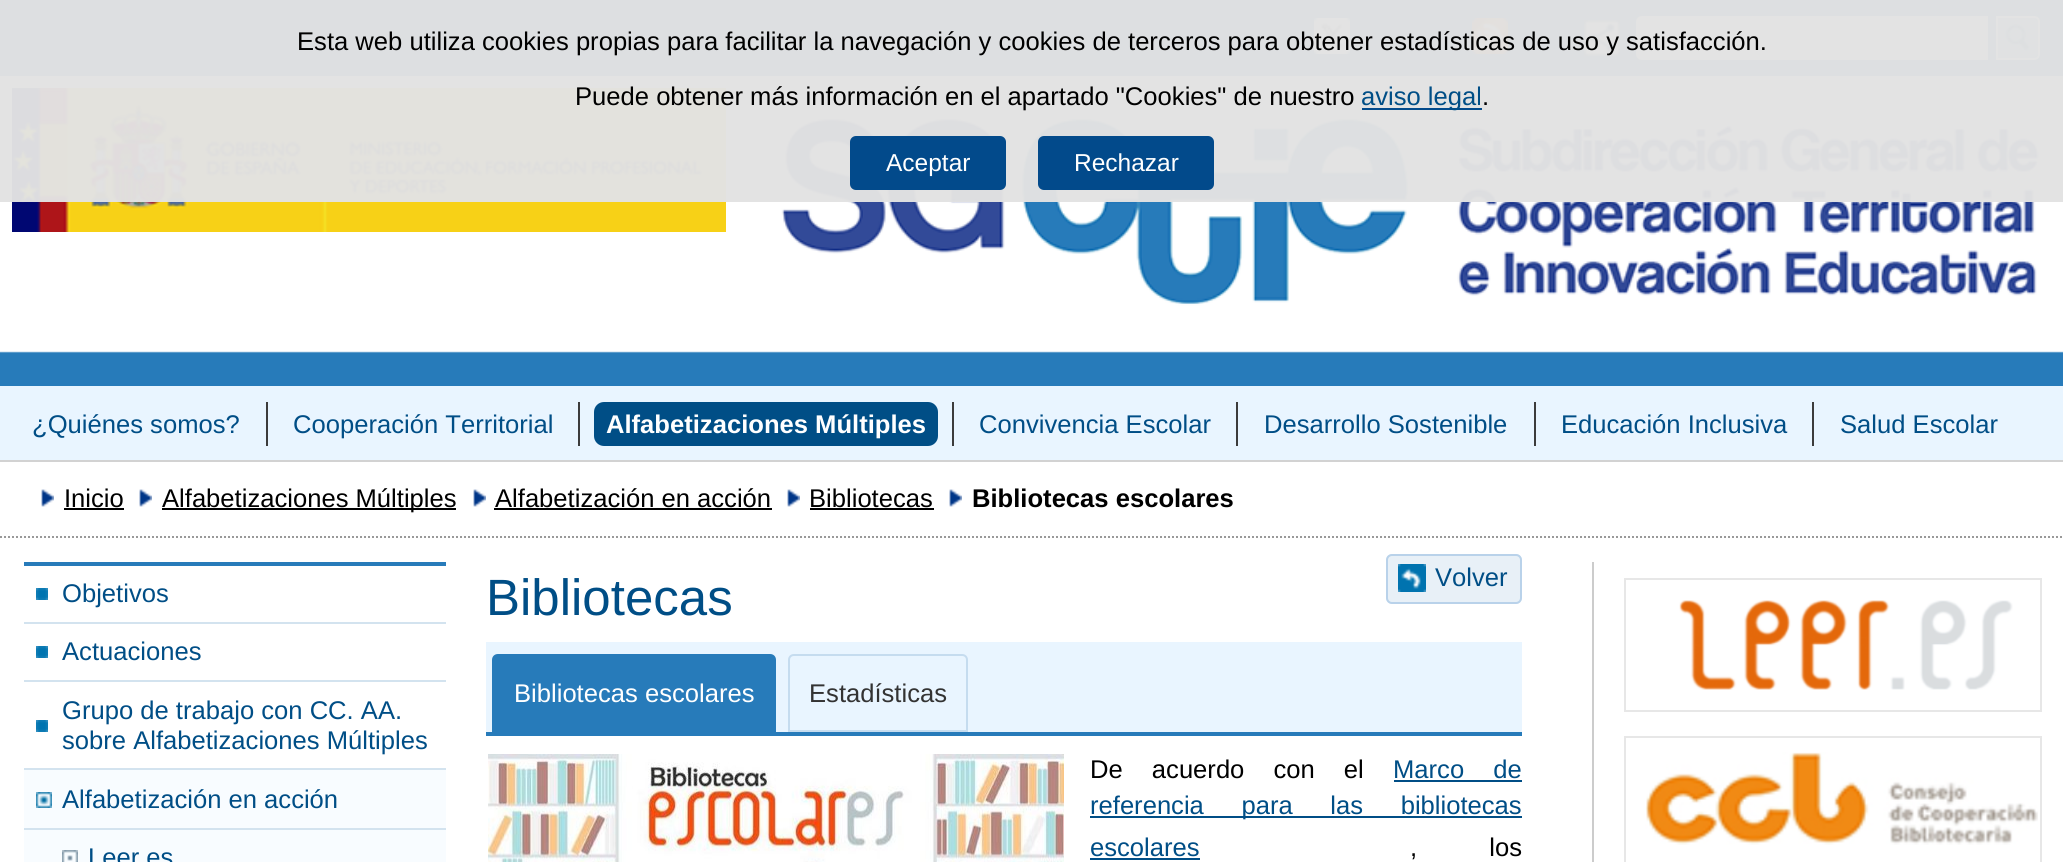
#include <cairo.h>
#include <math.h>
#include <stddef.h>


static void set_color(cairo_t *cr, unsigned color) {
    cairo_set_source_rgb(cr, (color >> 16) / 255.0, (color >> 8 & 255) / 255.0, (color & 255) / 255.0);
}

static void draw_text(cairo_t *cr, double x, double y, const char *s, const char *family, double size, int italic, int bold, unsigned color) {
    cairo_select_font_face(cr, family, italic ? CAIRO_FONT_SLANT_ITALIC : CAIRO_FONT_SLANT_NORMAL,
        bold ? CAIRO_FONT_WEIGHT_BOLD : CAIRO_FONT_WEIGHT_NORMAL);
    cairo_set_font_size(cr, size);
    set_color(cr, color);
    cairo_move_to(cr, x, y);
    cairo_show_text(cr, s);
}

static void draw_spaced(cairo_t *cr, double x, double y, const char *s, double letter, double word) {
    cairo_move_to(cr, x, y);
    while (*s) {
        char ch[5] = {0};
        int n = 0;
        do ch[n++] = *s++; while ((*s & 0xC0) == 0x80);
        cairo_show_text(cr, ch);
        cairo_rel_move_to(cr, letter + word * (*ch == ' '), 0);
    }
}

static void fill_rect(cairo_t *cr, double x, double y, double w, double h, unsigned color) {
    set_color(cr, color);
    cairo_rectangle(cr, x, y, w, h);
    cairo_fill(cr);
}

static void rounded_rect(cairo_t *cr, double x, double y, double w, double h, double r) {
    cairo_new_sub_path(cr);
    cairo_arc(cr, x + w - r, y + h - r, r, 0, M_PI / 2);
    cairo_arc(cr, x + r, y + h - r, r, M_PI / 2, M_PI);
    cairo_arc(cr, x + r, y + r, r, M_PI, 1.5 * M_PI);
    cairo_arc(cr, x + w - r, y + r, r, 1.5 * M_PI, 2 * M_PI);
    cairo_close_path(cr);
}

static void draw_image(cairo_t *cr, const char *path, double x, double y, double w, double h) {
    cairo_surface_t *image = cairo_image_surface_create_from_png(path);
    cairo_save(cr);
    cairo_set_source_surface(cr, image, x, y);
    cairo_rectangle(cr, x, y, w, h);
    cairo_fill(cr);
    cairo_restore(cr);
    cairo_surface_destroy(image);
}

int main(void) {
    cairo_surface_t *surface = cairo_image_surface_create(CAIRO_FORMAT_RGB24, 2063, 862);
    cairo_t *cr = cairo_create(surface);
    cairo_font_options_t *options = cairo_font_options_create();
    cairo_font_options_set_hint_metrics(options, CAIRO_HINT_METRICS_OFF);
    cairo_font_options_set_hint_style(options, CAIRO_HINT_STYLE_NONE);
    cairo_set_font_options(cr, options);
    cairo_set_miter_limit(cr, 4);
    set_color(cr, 0x277BBA);
    cairo_paint(cr);
    draw_image(cr, "assets/img1.png", 1314, 18, 36, 36);
    draw_image(cr, "assets/img2.png", 1472, 18, 36, 36);
    draw_image(cr, "assets/img3.png", 1584, 20, 36, 36);
    set_color(cr, 0xFFFFFF);
    cairo_new_path(cr);
    cairo_move_to(cr, 1642, 17);
    cairo_line_to(cr, 1987, 17);
    cairo_line_to(cr, 1987, 59);
    cairo_line_to(cr, 1642, 59);
    cairo_curve_to(cr, 1639, 59, 1637, 57, 1637, 54);
    cairo_line_to(cr, 1637, 22);
    cairo_curve_to(cr, 1637, 19, 1639, 17, 1642, 17);
    cairo_close_path(cr);
    cairo_fill_preserve(cr);
    set_color(cr, 0xF2F2F2);
    cairo_stroke(cr);
    draw_image(cr, "assets/img4.png", 1998, 18, 40, 40);
    cairo_new_path(cr);
    cairo_move_to(cr, 1997, 17);
    cairo_line_to(cr, 2034, 17);
    cairo_curve_to(cr, 2037, 17, 2039, 19, 2039, 22);
    cairo_line_to(cr, 2039, 54);
    cairo_curve_to(cr, 2039, 57, 2037, 59, 2034, 59);
    cairo_line_to(cr, 1997, 59);
    cairo_close_path(cr);
    set_color(cr, 0xFFFFFF);
    cairo_stroke(cr);
    fill_rect(cr, 0, 76, 2063, 270, 0xFFFFFF);
    draw_image(cr, "assets/img6.png", 0, 118, 2063, 268);
    draw_image(cr, "assets/img5.png", 12, 88, 714, 144);
    cairo_set_source_rgba(cr, 0.886, 0.886, 0.886, 0.97);
    cairo_rectangle(cr, 0, 0, 2063, 202);
    cairo_fill(cr);
    draw_text(cr, 297, 50, "Esta web utiliza cookies propias para facilitar la navegación y cookies de terceros para obtener estadísticas de uso y satisfacción.", "Liberation Sans", 25.6, 0, 0, 0x000000);
    draw_text(cr, 575, 105, "Puede obtener más información en el apartado \"Cookies\" de nuestro", "Liberation Sans", 25.6, 0, 0, 0x000000);
    fill_rect(cr, 1362, 108, 120, 2, 0x024A8B);
    draw_text(cr, 1361, 105, "aviso legal", "Liberation Sans", 25.6, 0, 0, 0x004E86);
    draw_text(cr, 1482, 105, ".", "Liberation Sans", 25.6, 0, 0, 0x000000);
    set_color(cr, 0x024A8B);
    rounded_rect(cr, 850, 136, 156, 54, 6);
    cairo_fill(cr);
    draw_text(cr, 886, 171, "Aceptar", "Liberation Sans", 24.5, 0, 0, 0xFFFFFF);
    set_color(cr, 0x024A8B);
    rounded_rect(cr, 1038, 136, 176, 54, 6);
    cairo_fill(cr);
    draw_text(cr, 1074, 171, "Rechazar", "Liberation Sans", 24.5, 0, 0, 0xFFFFFF);
    fill_rect(cr, 0, 386, 2063, 74, 0xE9F5FF);
    fill_rect(cr, 0, 460, 2063, 2, 0xD2D2D2);
    draw_text(cr, 32, 433, "¿Quiénes somos?", "Liberation Sans", 25.6, 0, 0, 0x004E86);
    fill_rect(cr, 266, 402, 2, 44, 0x3C3C3C);
    draw_text(cr, 293, 433, "Cooperación Territorial", "Liberation Sans", 25.6, 0, 0, 0x004E86);
    fill_rect(cr, 578, 402, 2, 44, 0x3C3C3C);
    set_color(cr, 0x004E86);
    rounded_rect(cr, 594, 402, 344, 44, 10);
    cairo_fill(cr);
    draw_text(cr, 606, 433, "Alfabetizaciones Múltiples", "Liberation Sans", 25.6, 0, 1, 0xFFFFFF);
    fill_rect(cr, 952, 402, 2, 44, 0x3C3C3C);
    draw_text(cr, 979, 433, "Convivencia Escolar", "Liberation Sans", 25.6, 0, 0, 0x004E86);
    fill_rect(cr, 1236, 402, 2, 44, 0x3C3C3C);
    draw_text(cr, 1264, 433, "Desarrollo Sostenible", "Liberation Sans", 25.6, 0, 0, 0x004E86);
    fill_rect(cr, 1534, 402, 2, 44, 0x3C3C3C);
    draw_text(cr, 1561, 433, "Educación Inclusiva", "Liberation Sans", 25.6, 0, 0, 0x004E86);
    fill_rect(cr, 1812, 402, 2, 44, 0x3C3C3C);
    draw_text(cr, 1840, 433, "Salud Escolar", "Liberation Sans", 25.6, 0, 0, 0x004E86);
    fill_rect(cr, 0, 462, 2063, 400, 0xFFFFFF);
    cairo_new_path(cr);
    cairo_move_to(cr, 0, 537);
    cairo_line_to(cr, 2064, 537);
    set_color(cr, 0x999999);
    cairo_set_dash(cr, (double[]){2, 2}, 2, 0);
    cairo_stroke(cr);
    draw_image(cr, "assets/img7.png", 41, 489, 13, 18);
    draw_text(cr, 64, 507, "Inicio", "Liberation Sans", 25.6, 0, 0, 0x000000);
    fill_rect(cr, 64, 508, 60, 2, 0x000000);
    draw_image(cr, "assets/img7.png", 139, 489, 13, 18);
    fill_rect(cr, 162, 508, 294, 2, 0x000000);
    draw_text(cr, 162, 507, "Alfabetizaciones Múltiples", "Liberation Sans", 25.6, 0, 0, 0x000000);
    draw_image(cr, "assets/img7.png", 473, 489, 13, 18);
    draw_text(cr, 495, 507, "Alfabetización en acción", "Liberation Sans", 25.6, 0, 0, 0x000000);
    fill_rect(cr, 494, 508, 278, 2, 0x000000);
    draw_image(cr, "assets/img7.png", 787, 489, 13, 18);
    draw_text(cr, 809, 507, "Bibliotecas", "Liberation Sans", 25.6, 0, 0, 0x000000);
    fill_rect(cr, 810, 508, 124, 2, 0x000000);
    draw_image(cr, "assets/img7.png", 949, 489, 13, 18);
    draw_text(cr, 972, 507, "Bibliotecas escolares", "Liberation Sans", 25.6, 0, 1, 0x000000);
    fill_rect(cr, 24, 562, 422, 4, 0x277BBA);
    draw_image(cr, "assets/img8.png", 36, 588, 12, 12);
    fill_rect(cr, 24, 622, 422, 2, 0xD3E3EF);
    draw_text(cr, 62, 602, "Objetivos", "Liberation Sans", 25.6, 0, 0, 0x004E86);
    draw_image(cr, "assets/img8.png", 36, 646, 12, 12);
    fill_rect(cr, 24, 680, 422, 2, 0xD3E3EF);
    draw_text(cr, 62, 660, "Actuaciones", "Liberation Sans", 25.6, 0, 0, 0x004E86);
    draw_image(cr, "assets/img8.png", 36, 720, 12, 12);
    fill_rect(cr, 24, 768, 422, 2, 0xD3E3EF);
    draw_text(cr, 62, 719, "Grupo de trabajo con CC. AA.", "Liberation Sans", 25.6, 0, 0, 0x004E86);
    draw_text(cr, 62, 749, "sobre Alfabetizaciones Múltiples", "Liberation Sans", 25.6, 0, 0, 0x004E86);
    fill_rect(cr, 24, 770, 422, 92, 0xF8FCFF);
    draw_image(cr, "assets/img9.png", 36, 792, 16, 16);
    fill_rect(cr, 24, 828, 422, 2, 0xD3E3EF);
    draw_text(cr, 62, 808, "Alfabetización en acción", "Liberation Sans", 25.6, 0, 0, 0x004E86);
    draw_image(cr, "assets/img10.png", 62, 850, 16, 12);
    draw_text(cr, 88, 866, "Leer.es", "Liberation Sans", 25.6, 0, 0, 0x004E86);
    draw_text(cr, 486, 615, "Bibliotecas", "Liberation Sans", 51, 0, 0, 0x004E86);
    set_color(cr, 0xE8F0F7);
    rounded_rect(cr, 1386, 554, 136, 50, 6);
    cairo_fill(cr);
    draw_image(cr, "assets/img11.png", 1398, 564, 28, 28);
    rounded_rect(cr, 1387, 555, 134, 48, 5);
    set_color(cr, 0xB9D2EA);
    cairo_set_dash(cr, NULL, 0, 0);
    cairo_stroke(cr);
    draw_text(cr, 1435, 586, "Volver", "Liberation Sans", 25.6, 0, 0, 0x004E86);
    fill_rect(cr, 486, 642, 1036, 90, 0xE9F5FF);
    fill_rect(cr, 486, 732, 1036, 4, 0x277BBA);
    cairo_new_path(cr);
    cairo_move_to(cr, 498, 655);
    cairo_line_to(cr, 770, 655);
    cairo_curve_to(cr, 773, 655, 775, 657, 775, 660);
    cairo_line_to(cr, 775, 731);
    cairo_line_to(cr, 493, 731);
    cairo_line_to(cr, 493, 660);
    cairo_curve_to(cr, 493, 657, 495, 655, 498, 655);
    cairo_close_path(cr);
    cairo_fill_preserve(cr);
    cairo_stroke(cr);
    draw_text(cr, 514, 702, "Bibliotecas escolares", "Liberation Sans", 25.6, 0, 0, 0xFFFFFF);
    cairo_new_path(cr);
    cairo_move_to(cr, 794, 655);
    cairo_line_to(cr, 962, 655);
    cairo_curve_to(cr, 965, 655, 967, 657, 967, 660);
    cairo_line_to(cr, 967, 731);
    cairo_line_to(cr, 789, 731);
    cairo_line_to(cr, 789, 660);
    cairo_curve_to(cr, 789, 657, 791, 655, 794, 655);
    cairo_close_path(cr);
    set_color(cr, 0xC5DCEF);
    cairo_stroke(cr);
    draw_text(cr, 809, 702, "Estadísticas", "Liberation Sans", 25.6, 0, 0, 0x333333);
    draw_image(cr, "assets/img12.png", 488, 754, 576, 108);
    set_color(cr, 0x000000);
    draw_spaced(cr, 1090, 778, "De acuerdo con el", 0, 22);
    set_color(cr, 0x004E86);
    draw_spaced(cr, 1393, 778, "Marco de", 0, 22);
    fill_rect(cr, 1394, 780, 128, 2, 0x004E86);
    fill_rect(cr, 1090, 816, 432, 2, 0x004E86);
    draw_spaced(cr, 1090, 814, "referencia para las bibliotecas", 0, 30.5);
    draw_text(cr, 1090, 856, "escolares", "Liberation Sans", 25.6, 0, 0, 0x004E86);
    fill_rect(cr, 1090, 858, 110, 2, 0x004E86);
    set_color(cr, 0x000000);
    draw_spaced(cr, 1410, 856, ", los", 0, 65);
    fill_rect(cr, 1592, 562, 2, 300, 0xCCCCCC);
    cairo_rectangle(cr, 1625, 579, 416, 132);
    set_color(cr, 0xE7E7E7);
    cairo_stroke(cr);
    draw_image(cr, "assets/img13.png", 1679, 600, 334, 90);
    cairo_rectangle(cr, 1625, 737, 416, 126);
    cairo_stroke(cr);
    draw_image(cr, "assets/img14.png", 1645, 752, 393, 93);
    cairo_surface_write_to_png(surface, "output.png");
    cairo_font_options_destroy(options);
    cairo_destroy(cr);
    cairo_surface_destroy(surface);
    return 0;
}
